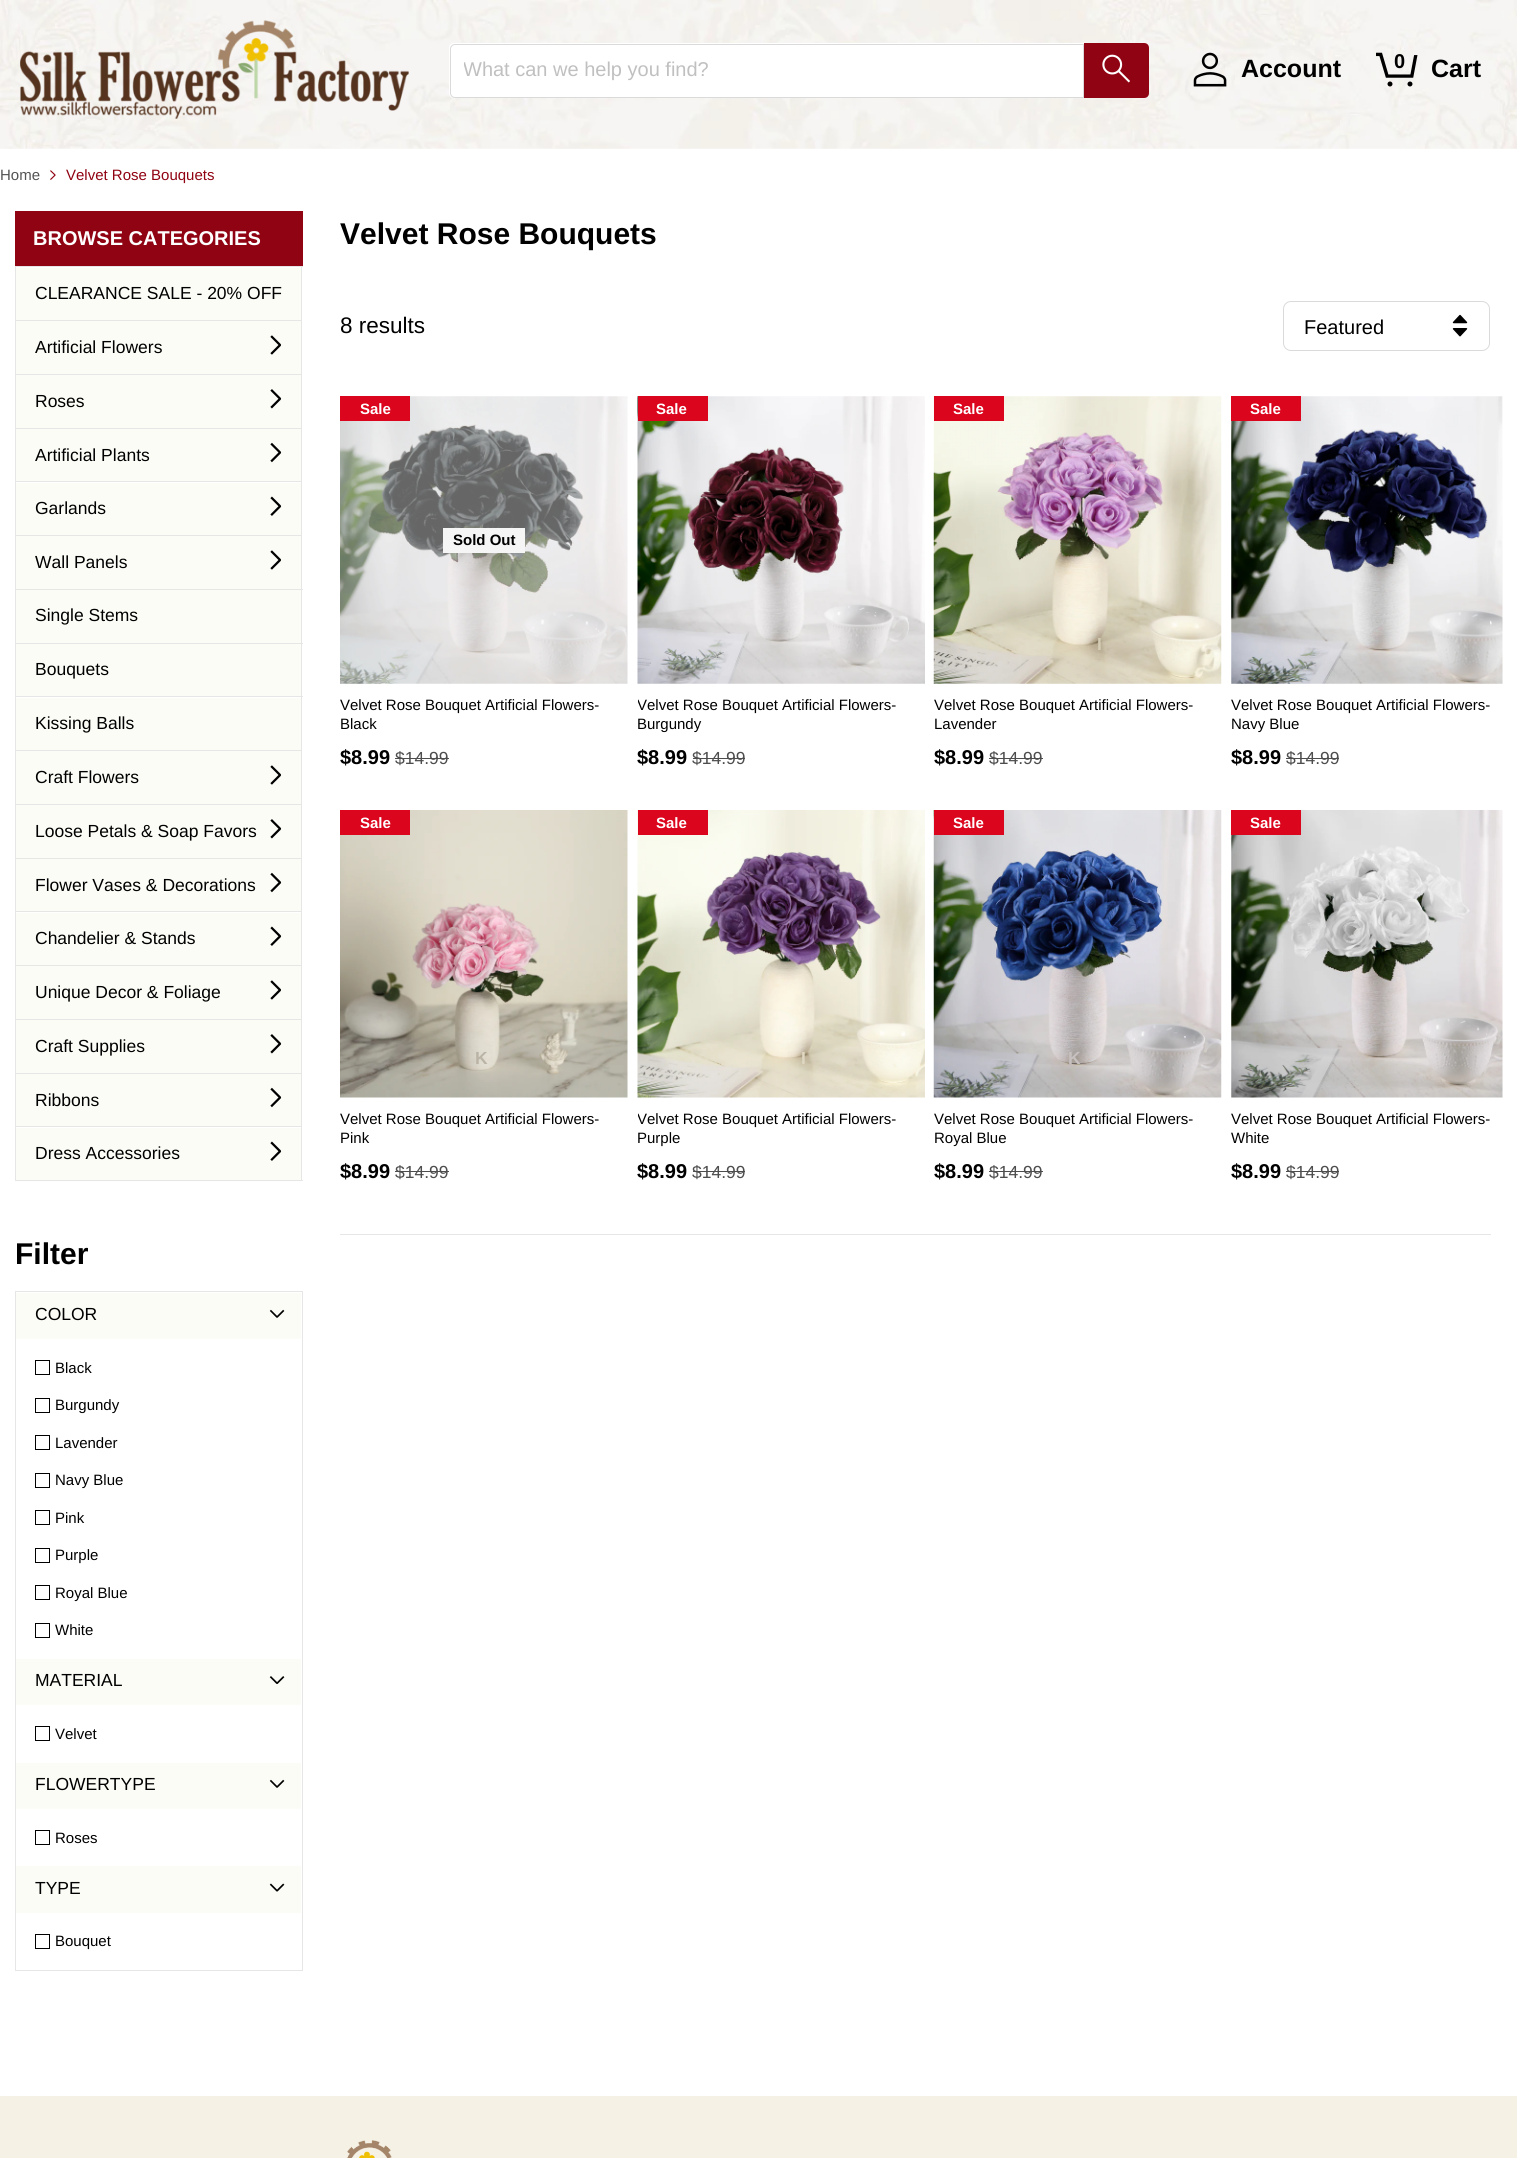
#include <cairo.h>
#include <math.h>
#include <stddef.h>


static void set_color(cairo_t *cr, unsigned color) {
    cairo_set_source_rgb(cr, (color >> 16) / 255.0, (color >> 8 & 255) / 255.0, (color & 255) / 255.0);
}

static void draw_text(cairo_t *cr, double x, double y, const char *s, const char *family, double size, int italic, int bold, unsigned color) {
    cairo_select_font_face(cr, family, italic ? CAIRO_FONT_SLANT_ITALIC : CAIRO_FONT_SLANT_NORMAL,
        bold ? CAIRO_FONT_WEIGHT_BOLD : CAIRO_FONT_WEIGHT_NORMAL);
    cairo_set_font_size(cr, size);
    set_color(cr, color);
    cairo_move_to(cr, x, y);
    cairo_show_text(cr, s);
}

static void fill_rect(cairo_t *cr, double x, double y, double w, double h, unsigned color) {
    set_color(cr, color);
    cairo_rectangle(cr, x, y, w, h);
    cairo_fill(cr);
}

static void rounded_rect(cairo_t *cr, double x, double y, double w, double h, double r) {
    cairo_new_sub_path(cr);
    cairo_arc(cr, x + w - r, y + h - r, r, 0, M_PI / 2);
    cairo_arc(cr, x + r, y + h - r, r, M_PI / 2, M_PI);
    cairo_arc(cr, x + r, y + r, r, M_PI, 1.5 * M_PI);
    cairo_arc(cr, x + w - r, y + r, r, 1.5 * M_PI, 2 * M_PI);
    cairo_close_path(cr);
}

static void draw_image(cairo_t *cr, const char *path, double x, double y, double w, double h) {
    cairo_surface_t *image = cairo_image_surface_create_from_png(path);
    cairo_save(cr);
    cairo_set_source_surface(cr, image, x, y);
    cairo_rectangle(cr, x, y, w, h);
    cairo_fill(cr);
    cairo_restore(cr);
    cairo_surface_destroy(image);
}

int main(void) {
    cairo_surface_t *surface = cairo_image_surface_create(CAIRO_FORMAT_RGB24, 1517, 2158);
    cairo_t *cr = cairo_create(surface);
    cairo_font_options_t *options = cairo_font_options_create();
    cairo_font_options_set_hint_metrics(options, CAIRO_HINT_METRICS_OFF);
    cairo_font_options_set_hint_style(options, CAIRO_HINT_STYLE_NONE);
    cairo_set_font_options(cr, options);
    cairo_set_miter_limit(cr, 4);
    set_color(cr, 0xFFFFFF);
    cairo_paint(cr);
    draw_image(cr, "assets/img1.png", 0, 0, 1517, 149);
    draw_image(cr, "assets/img2.png", 20, 20, 389, 99);
    set_color(cr, 0xFFFFFF);
    cairo_new_path(cr);
    cairo_move_to(cr, 454, 43);
    cairo_line_to(cr, 1084, 43);
    cairo_line_to(cr, 1084, 98);
    cairo_line_to(cr, 454, 98);
    cairo_curve_to(cr, 451, 98, 449, 96, 449, 93);
    cairo_line_to(cr, 449, 48);
    cairo_curve_to(cr, 449, 45, 451, 43, 454, 43);
    cairo_close_path(cr);
    cairo_fill(cr);
    cairo_new_path(cr);
    cairo_move_to(cr, 455, 44.5);
    cairo_line_to(cr, 1083.5, 44.5);
    cairo_line_to(cr, 1083.5, 97.5);
    cairo_line_to(cr, 455, 97.5);
    cairo_curve_to(cr, 452.5, 97.5, 450.5, 95.5, 450.5, 93);
    cairo_line_to(cr, 450.5, 49);
    cairo_curve_to(cr, 450.5, 46.5, 452.5, 44.5, 455, 44.5);
    cairo_close_path(cr);
    set_color(cr, 0xDADADA);
    cairo_set_line_width(cr, 1);
    cairo_stroke(cr);
    cairo_save(cr);
    cairo_rectangle(cr, 464, 59, 605, 22);
    cairo_clip(cr);
    draw_text(cr, 463, 76, "What can we help you find?", "Liberation Sans", 20, 0, 0, 0xC0C0C0);
    cairo_restore(cr);
    set_color(cr, 0x900313);
    cairo_new_path(cr);
    cairo_move_to(cr, 1084, 43);
    cairo_line_to(cr, 1144, 43);
    cairo_curve_to(cr, 1147, 43, 1149, 45, 1149, 48);
    cairo_line_to(cr, 1149, 93);
    cairo_curve_to(cr, 1149, 96, 1147, 98, 1144, 98);
    cairo_line_to(cr, 1084, 98);
    cairo_close_path(cr);
    cairo_fill(cr);
    draw_image(cr, "assets/img3.png", 1102, 54, 28, 29);
    draw_image(cr, "assets/img4.png", 1193, 52, 34, 35);
    draw_text(cr, 1241, 77, "Account", "Liberation Sans", 25, 0, 1, 0x000000);
    draw_image(cr, "assets/img5.png", 1376, 52, 42, 35);
    draw_text(cr, 1394, 68, "0", "Liberation Sans", 20, 0, 1, 0x000000);
    draw_text(cr, 1431, 77, "Cart", "Liberation Sans", 25, 0, 1, 0x000000);
    draw_text(cr, 0, 180, "Home", "Liberation Sans", 15, 0, 0, 0x545454);
    draw_image(cr, "assets/img6.png", 50, 170, 6, 10);
    draw_text(cr, 66, 180, "Velvet Rose Bouquets", "Liberation Sans", 15, 0, 0, 0x900313);
    fill_rect(cr, 15, 211, 288, 55, 0x900313);
    draw_text(cr, 33, 245, "BROWSE CATEGORIES", "Liberation Sans", 20, 0, 1, 0xFFFFFF);
    fill_rect(cr, 16, 268, 285, 52, 0xFBFCF6);
    fill_rect(cr, 15, 266, 288, 1, 0xE6E6E6);
    fill_rect(cr, 301, 266, 1, 323, 0xE6E6E6);
    fill_rect(cr, 15, 266, 1, 323, 0xE6E6E6);
    draw_text(cr, 35, 299, "CLEARANCE SALE - 20% OFF", "Liberation Sans", 17.5, 0, 0, 0x000000);
    fill_rect(cr, 16, 321, 285, 53, 0xFBFCF6);
    fill_rect(cr, 16, 320, 285, 1, 0xE6E6E6);
    draw_text(cr, 35, 353, "Artificial Flowers", "Liberation Sans", 17.5, 0, 0, 0x000000);
    draw_image(cr, "assets/img7.png", 270, 335, 11, 20);
    fill_rect(cr, 16, 375, 285, 53, 0xFBFCF6);
    fill_rect(cr, 16, 374, 285, 1, 0xE6E6E6);
    draw_text(cr, 35, 407, "Roses", "Liberation Sans", 17.5, 0, 0, 0x000000);
    draw_image(cr, "assets/img8.png", 270, 389, 12, 20);
    fill_rect(cr, 16, 429, 285, 52, 0xFBFCF6);
    fill_rect(cr, 16, 428, 285, 1, 0xE6E6E6);
    draw_text(cr, 35, 461, "Artificial Plants", "Liberation Sans", 17.5, 0, 0, 0x000000);
    draw_image(cr, "assets/img9.png", 270, 442, 12, 21);
    fill_rect(cr, 16, 483, 285, 52, 0xFBFCF6);
    fill_rect(cr, 16, 481, 285, 1, 0xE6E6E6);
    draw_text(cr, 35, 514, "Garlands", "Liberation Sans", 17.5, 0, 0, 0x000000);
    draw_image(cr, "assets/img10.png", 270, 496, 12, 20);
    fill_rect(cr, 16, 536, 285, 53, 0xFBFCF6);
    fill_rect(cr, 16, 535, 285, 1, 0xE6E6E6);
    draw_text(cr, 35, 568, "Wall Panels", "Liberation Sans", 17.5, 0, 0, 0x000000);
    draw_image(cr, "assets/img7.png", 270, 550, 11, 20);
    fill_rect(cr, 16, 590, 285, 53, 0xFBFCF6);
    fill_rect(cr, 15, 589, 288, 1, 0xE6E6E6);
    fill_rect(cr, 301, 589, 1, 54, 0xE6E6E6);
    fill_rect(cr, 15, 589, 1, 54, 0xE6E6E6);
    draw_text(cr, 35, 621, "Single Stems", "Liberation Sans", 17.5, 0, 0, 0x000000);
    fill_rect(cr, 16, 644, 285, 52, 0xFBFCF6);
    fill_rect(cr, 15, 643, 288, 1, 0xE6E6E6);
    fill_rect(cr, 301, 643, 1, 53, 0xE6E6E6);
    fill_rect(cr, 15, 643, 1, 53, 0xE6E6E6);
    draw_text(cr, 35, 675, "Bouquets", "Liberation Sans", 17.5, 0, 0, 0x000000);
    fill_rect(cr, 16, 698, 285, 52, 0xFBFCF6);
    fill_rect(cr, 15, 696, 288, 1, 0xE6E6E6);
    fill_rect(cr, 301, 696, 1, 485, 0xE6E6E6);
    fill_rect(cr, 15, 696, 1, 430, 0xE6E6E6);
    draw_text(cr, 35, 729, "Kissing Balls", "Liberation Sans", 17.5, 0, 0, 0x000000);
    fill_rect(cr, 16, 751, 285, 53, 0xFBFCF6);
    fill_rect(cr, 16, 750, 285, 1, 0xE6E6E6);
    draw_text(cr, 35, 783, "Craft Flowers", "Liberation Sans", 17.5, 0, 0, 0x000000);
    draw_image(cr, "assets/img7.png", 270, 765, 11, 20);
    fill_rect(cr, 16, 805, 285, 53, 0xFBFCF6);
    fill_rect(cr, 16, 804, 285, 1, 0xE6E6E6);
    draw_text(cr, 35, 837, "Loose Petals & Soap Favors", "Liberation Sans", 17.5, 0, 0, 0x000000);
    draw_image(cr, "assets/img8.png", 270, 819, 12, 20);
    fill_rect(cr, 16, 859, 285, 52, 0xFBFCF6);
    fill_rect(cr, 16, 858, 285, 1, 0xE6E6E6);
    draw_text(cr, 35, 891, "Flower Vases & Decorations", "Liberation Sans", 17.5, 0, 0, 0x000000);
    draw_image(cr, "assets/img9.png", 270, 872, 12, 21);
    fill_rect(cr, 16, 913, 285, 52, 0xFBFCF6);
    fill_rect(cr, 16, 911, 285, 1, 0xE6E6E6);
    draw_text(cr, 35, 944, "Chandelier & Stands", "Liberation Sans", 17.5, 0, 0, 0x000000);
    draw_image(cr, "assets/img10.png", 270, 926, 12, 20);
    fill_rect(cr, 16, 966, 285, 53, 0xFBFCF6);
    fill_rect(cr, 16, 965, 285, 1, 0xE6E6E6);
    draw_text(cr, 35, 998, "Unique Decor & Foliage", "Liberation Sans", 17.5, 0, 0, 0x000000);
    draw_image(cr, "assets/img7.png", 270, 980, 11, 20);
    fill_rect(cr, 16, 1020, 285, 53, 0xFBFCF6);
    fill_rect(cr, 16, 1019, 285, 1, 0xE6E6E6);
    draw_text(cr, 35, 1052, "Craft Supplies", "Liberation Sans", 17.5, 0, 0, 0x000000);
    draw_image(cr, "assets/img8.png", 270, 1034, 12, 20);
    fill_rect(cr, 16, 1074, 285, 52, 0xFBFCF6);
    fill_rect(cr, 16, 1073, 285, 1, 0xE6E6E6);
    draw_text(cr, 35, 1106, "Ribbons", "Liberation Sans", 17.5, 0, 0, 0x000000);
    draw_image(cr, "assets/img9.png", 270, 1087, 12, 21);
    fill_rect(cr, 15, 1180, 288, 1, 0xE6E6E6);
    fill_rect(cr, 15, 1126, 1, 55, 0xE6E6E6);
    fill_rect(cr, 16, 1128, 285, 52, 0xFBFCF6);
    fill_rect(cr, 16, 1126, 285, 1, 0xE6E6E6);
    draw_text(cr, 35, 1159, "Dress Accessories", "Liberation Sans", 17.5, 0, 0, 0x000000);
    draw_image(cr, "assets/img10.png", 270, 1141, 12, 20);
    draw_text(cr, 15, 1264, "Filter", "Liberation Sans", 30, 0, 1, 0x000000);
    cairo_rectangle(cr, 15.5, 1291.5, 287, 679);
    set_color(cr, 0xE6E6E6);
    cairo_stroke(cr);
    fill_rect(cr, 16, 1293, 285, 45, 0xFBFCF6);
    fill_rect(cr, 16, 1338, 285, 1, 0xFCFDF8);
    draw_text(cr, 35, 1320, "COLOR", "Liberation Sans", 17.5, 0, 0, 0x000000);
    draw_image(cr, "assets/img11.png", 269, 1309, 16, 9);
    cairo_rectangle(cr, 35.5, 1360.5, 14, 14);
    cairo_stroke(cr);
    draw_text(cr, 55, 1373, "Black", "Liberation Sans", 15, 0, 0, 0x000000);
    cairo_rectangle(cr, 35.5, 1398.5, 14, 14);
    cairo_stroke(cr);
    draw_text(cr, 55, 1410, "Burgundy", "Liberation Sans", 15, 0, 0, 0x000000);
    cairo_rectangle(cr, 35.5, 1435.5, 14, 14);
    cairo_stroke(cr);
    draw_text(cr, 55, 1448, "Lavender", "Liberation Sans", 15, 0, 0, 0x000000);
    cairo_rectangle(cr, 35.5, 1473.5, 14, 14);
    cairo_stroke(cr);
    draw_text(cr, 55, 1485, "Navy Blue", "Liberation Sans", 15, 0, 0, 0x000000);
    cairo_rectangle(cr, 35.5, 1510.5, 14, 14);
    cairo_stroke(cr);
    draw_text(cr, 55, 1523, "Pink", "Liberation Sans", 15, 0, 0, 0x000000);
    cairo_rectangle(cr, 35.5, 1548.5, 14, 14);
    cairo_stroke(cr);
    draw_text(cr, 55, 1560, "Purple", "Liberation Sans", 15, 0, 0, 0x000000);
    cairo_rectangle(cr, 35.5, 1585.5, 14, 14);
    cairo_stroke(cr);
    draw_text(cr, 55, 1598, "Royal Blue", "Liberation Sans", 15, 0, 0, 0x000000);
    cairo_rectangle(cr, 35.5, 1623.5, 14, 14);
    cairo_stroke(cr);
    draw_text(cr, 55, 1635, "White", "Liberation Sans", 15, 0, 0, 0x000000);
    fill_rect(cr, 16, 1659, 285, 45, 0xFBFCF6);
    fill_rect(cr, 16, 1704, 285, 1, 0xFCFDF8);
    draw_text(cr, 35, 1686, "MATERIAL", "Liberation Sans", 17.5, 0, 0, 0x000000);
    draw_image(cr, "assets/img12.png", 269, 1676, 16, 8);
    cairo_rectangle(cr, 35.5, 1726.5, 14, 14);
    cairo_stroke(cr);
    draw_text(cr, 55, 1739, "Velvet", "Liberation Sans", 15, 0, 0, 0x000000);
    fill_rect(cr, 16, 1763, 285, 45, 0xFBFCF6);
    fill_rect(cr, 16, 1808, 285, 1, 0xFCFDF8);
    draw_text(cr, 35, 1790, "FLOWERTYPE", "Liberation Sans", 17.5, 0, 0, 0x000000);
    draw_image(cr, "assets/img11.png", 269, 1779, 16, 9);
    cairo_rectangle(cr, 35.5, 1830.5, 14, 14);
    cairo_stroke(cr);
    draw_text(cr, 55, 1843, "Roses", "Liberation Sans", 15, 0, 0, 0x000000);
    fill_rect(cr, 16, 1866, 285, 47, 0xFBFCF6);
    draw_text(cr, 35, 1894, "TYPE", "Liberation Sans", 17.5, 0, 0, 0x000000);
    draw_image(cr, "assets/img13.png", 269, 1883, 16, 9);
    cairo_rectangle(cr, 35.5, 1934.5, 14, 14);
    cairo_stroke(cr);
    draw_text(cr, 55, 1946, "Bouquet", "Liberation Sans", 15, 0, 0, 0x000000);
    draw_text(cr, 340, 244, "Velvet Rose Bouquets", "Liberation Sans", 30, 0, 1, 0x000000);
    draw_text(cr, 340, 333, "8 results", "Liberation Sans", 22.5, 0, 0, 0x000000);
    rounded_rect(cr, 1283.5, 301.5, 206, 49, 7.5);
    set_color(cr, 0xDADADA);
    cairo_stroke(cr);
    draw_text(cr, 1304, 334, "Featured", "Liberation Sans", 20, 0, 0, 0x000000);
    draw_image(cr, "assets/img14.png", 1452, 314, 16, 23);
    draw_image(cr, "assets/img15.png", 340, 396, 288, 288);
    fill_rect(cr, 340, 396, 70, 25, 0xDB051D);
    draw_text(cr, 360, 414, "Sale", "Liberation Sans", 15, 0, 1, 0xFFFFFF);
    fill_rect(cr, 443, 528, 82, 25, 0xF5F5F5);
    draw_text(cr, 453, 545, "Sold Out", "Liberation Sans", 15, 0, 1, 0x000000);
    draw_text(cr, 340, 710, "Velvet Rose Bouquet Artificial Flowers-", "Liberation Sans", 15, 0, 0, 0x000000);
    draw_text(cr, 340, 729, "Black", "Liberation Sans", 15, 0, 0, 0x000000);
    draw_text(cr, 340, 764, "$8.99", "Liberation Sans", 20, 0, 1, 0x000000);
    draw_text(cr, 395, 764, "$14.99", "Liberation Sans", 17.5, 0, 0, 0x4D4D4D);
    fill_rect(cr, 395, 758, 54, 1, 0x4D4D4D);
    draw_image(cr, "assets/img16.png", 637, 396, 288, 288);
    fill_rect(cr, 638, 396, 70, 25, 0xDB051D);
    draw_text(cr, 656, 414, "Sale", "Liberation Sans", 15, 0, 1, 0xFFFFFF);
    cairo_save(cr);
    cairo_rectangle(cr, 638, 696, 287, 38);
    cairo_clip(cr);
    draw_text(cr, 637, 710, "Velvet Rose Bouquet Artificial Flowers-", "Liberation Sans", 15, 0, 0, 0x000000);
    cairo_restore(cr);
    draw_text(cr, 637, 729, "Burgundy", "Liberation Sans", 15, 0, 0, 0x000000);
    draw_text(cr, 637, 764, "$8.99", "Liberation Sans", 20, 0, 1, 0x000000);
    draw_text(cr, 692, 764, "$14.99", "Liberation Sans", 17.5, 0, 0, 0x4D4D4D);
    fill_rect(cr, 693, 758, 52, 1, 0x4D4D4D);
    draw_image(cr, "assets/img17.png", 933, 396, 289, 288);
    fill_rect(cr, 934, 396, 70, 25, 0xDB051D);
    draw_text(cr, 953, 414, "Sale", "Liberation Sans", 15, 0, 1, 0xFFFFFF);
    draw_text(cr, 934, 710, "Velvet Rose Bouquet Artificial Flowers-", "Liberation Sans", 15, 0, 0, 0x000000);
    draw_text(cr, 934, 729, "Lavender", "Liberation Sans", 15, 0, 0, 0x000000);
    draw_text(cr, 934, 764, "$8.99", "Liberation Sans", 20, 0, 1, 0x000000);
    draw_text(cr, 989, 764, "$14.99", "Liberation Sans", 17.5, 0, 0, 0x4D4D4D);
    fill_rect(cr, 989, 758, 54, 1, 0x4D4D4D);
    draw_text(cr, 1097, 650, "I", "Liberation Sans", 17.5, 0, 1, 0xD5CCB5);
    draw_image(cr, "assets/img18.png", 1231, 396, 272, 288);
    fill_rect(cr, 1231, 396, 70, 25, 0xDB051D);
    draw_text(cr, 1250, 414, "Sale", "Liberation Sans", 15, 0, 1, 0xFFFFFF);
    draw_text(cr, 1231, 710, "Velvet Rose Bouquet Artificial Flowers-", "Liberation Sans", 15, 0, 0, 0x000000);
    draw_text(cr, 1231, 729, "Navy Blue", "Liberation Sans", 15, 0, 0, 0x000000);
    draw_text(cr, 1231, 764, "$8.99", "Liberation Sans", 20, 0, 1, 0x000000);
    draw_text(cr, 1286, 764, "$14.99", "Liberation Sans", 17.5, 0, 0, 0x4D4D4D);
    fill_rect(cr, 1286, 758, 53, 1, 0x4D4D4D);
    draw_image(cr, "assets/img19.png", 340, 810, 288, 288);
    fill_rect(cr, 340, 810, 70, 25, 0xDB051D);
    draw_text(cr, 360, 828, "Sale", "Liberation Sans", 15, 0, 1, 0xFFFFFF);
    draw_text(cr, 340, 1124, "Velvet Rose Bouquet Artificial Flowers-", "Liberation Sans", 15, 0, 0, 0x000000);
    draw_text(cr, 340, 1143, "Pink", "Liberation Sans", 15, 0, 0, 0x000000);
    draw_text(cr, 340, 1178, "$8.99", "Liberation Sans", 20, 0, 1, 0x000000);
    draw_text(cr, 395, 1178, "$14.99", "Liberation Sans", 17.5, 0, 0, 0x4D4D4D);
    fill_rect(cr, 395, 1171, 54, 1, 0x4D4D4D);
    draw_text(cr, 475, 1064, "K", "Liberation Sans", 17.5, 0, 1, 0xB9B4A5);
    draw_image(cr, "assets/img20.png", 637, 810, 288, 288);
    fill_rect(cr, 638, 810, 70, 25, 0xDB051D);
    draw_text(cr, 656, 828, "Sale", "Liberation Sans", 15, 0, 1, 0xFFFFFF);
    cairo_save(cr);
    cairo_rectangle(cr, 638, 1110, 287, 38);
    cairo_clip(cr);
    draw_text(cr, 637, 1124, "Velvet Rose Bouquet Artificial Flowers-", "Liberation Sans", 15, 0, 0, 0x000000);
    cairo_restore(cr);
    draw_text(cr, 637, 1143, "Purple", "Liberation Sans", 15, 0, 0, 0x000000);
    draw_text(cr, 637, 1178, "$8.99", "Liberation Sans", 20, 0, 1, 0x000000);
    draw_text(cr, 692, 1178, "$14.99", "Liberation Sans", 17.5, 0, 0, 0x4D4D4D);
    fill_rect(cr, 693, 1171, 52, 1, 0x4D4D4D);
    draw_text(cr, 801, 1064, "I", "Liberation Sans", 17.5, 0, 1, 0xDFD7C1);
    draw_image(cr, "assets/img21.png", 933, 810, 289, 288);
    fill_rect(cr, 934, 810, 70, 25, 0xDB051D);
    draw_text(cr, 953, 828, "Sale", "Liberation Sans", 15, 0, 1, 0xFFFFFF);
    draw_text(cr, 934, 1124, "Velvet Rose Bouquet Artificial Flowers-", "Liberation Sans", 15, 0, 0, 0x000000);
    draw_text(cr, 934, 1143, "Royal Blue", "Liberation Sans", 15, 0, 0, 0x000000);
    draw_text(cr, 934, 1178, "$8.99", "Liberation Sans", 20, 0, 1, 0x000000);
    draw_text(cr, 989, 1178, "$14.99", "Liberation Sans", 17.5, 0, 0, 0x4D4D4D);
    fill_rect(cr, 989, 1171, 54, 1, 0x4D4D4D);
    draw_text(cr, 1068, 1064, "K", "Liberation Sans", 17.5, 0, 1, 0xC6C1C0);
    draw_image(cr, "assets/img22.png", 1231, 810, 272, 288);
    fill_rect(cr, 1231, 810, 70, 25, 0xDB051D);
    draw_text(cr, 1250, 828, "Sale", "Liberation Sans", 15, 0, 1, 0xFFFFFF);
    draw_text(cr, 1231, 1124, "Velvet Rose Bouquet Artificial Flowers-", "Liberation Sans", 15, 0, 0, 0x000000);
    draw_text(cr, 1231, 1143, "White", "Liberation Sans", 15, 0, 0, 0x000000);
    draw_text(cr, 1231, 1178, "$8.99", "Liberation Sans", 20, 0, 1, 0x000000);
    draw_text(cr, 1286, 1178, "$14.99", "Liberation Sans", 17.5, 0, 0, 0x4D4D4D);
    fill_rect(cr, 1286, 1171, 53, 1, 0x4D4D4D);
    fill_rect(cr, 340, 1234, 1151, 1, 0xE6E6E6);
    fill_rect(cr, 0, 2096, 1517, 62, 0xF6F1E5);
    draw_image(cr, "assets/img23.png", 347, 2140, 45, 18);
    cairo_surface_write_to_png(surface, "output.png");
    cairo_font_options_destroy(options);
    cairo_destroy(cr);
    cairo_surface_destroy(surface);
    return 0;
}
